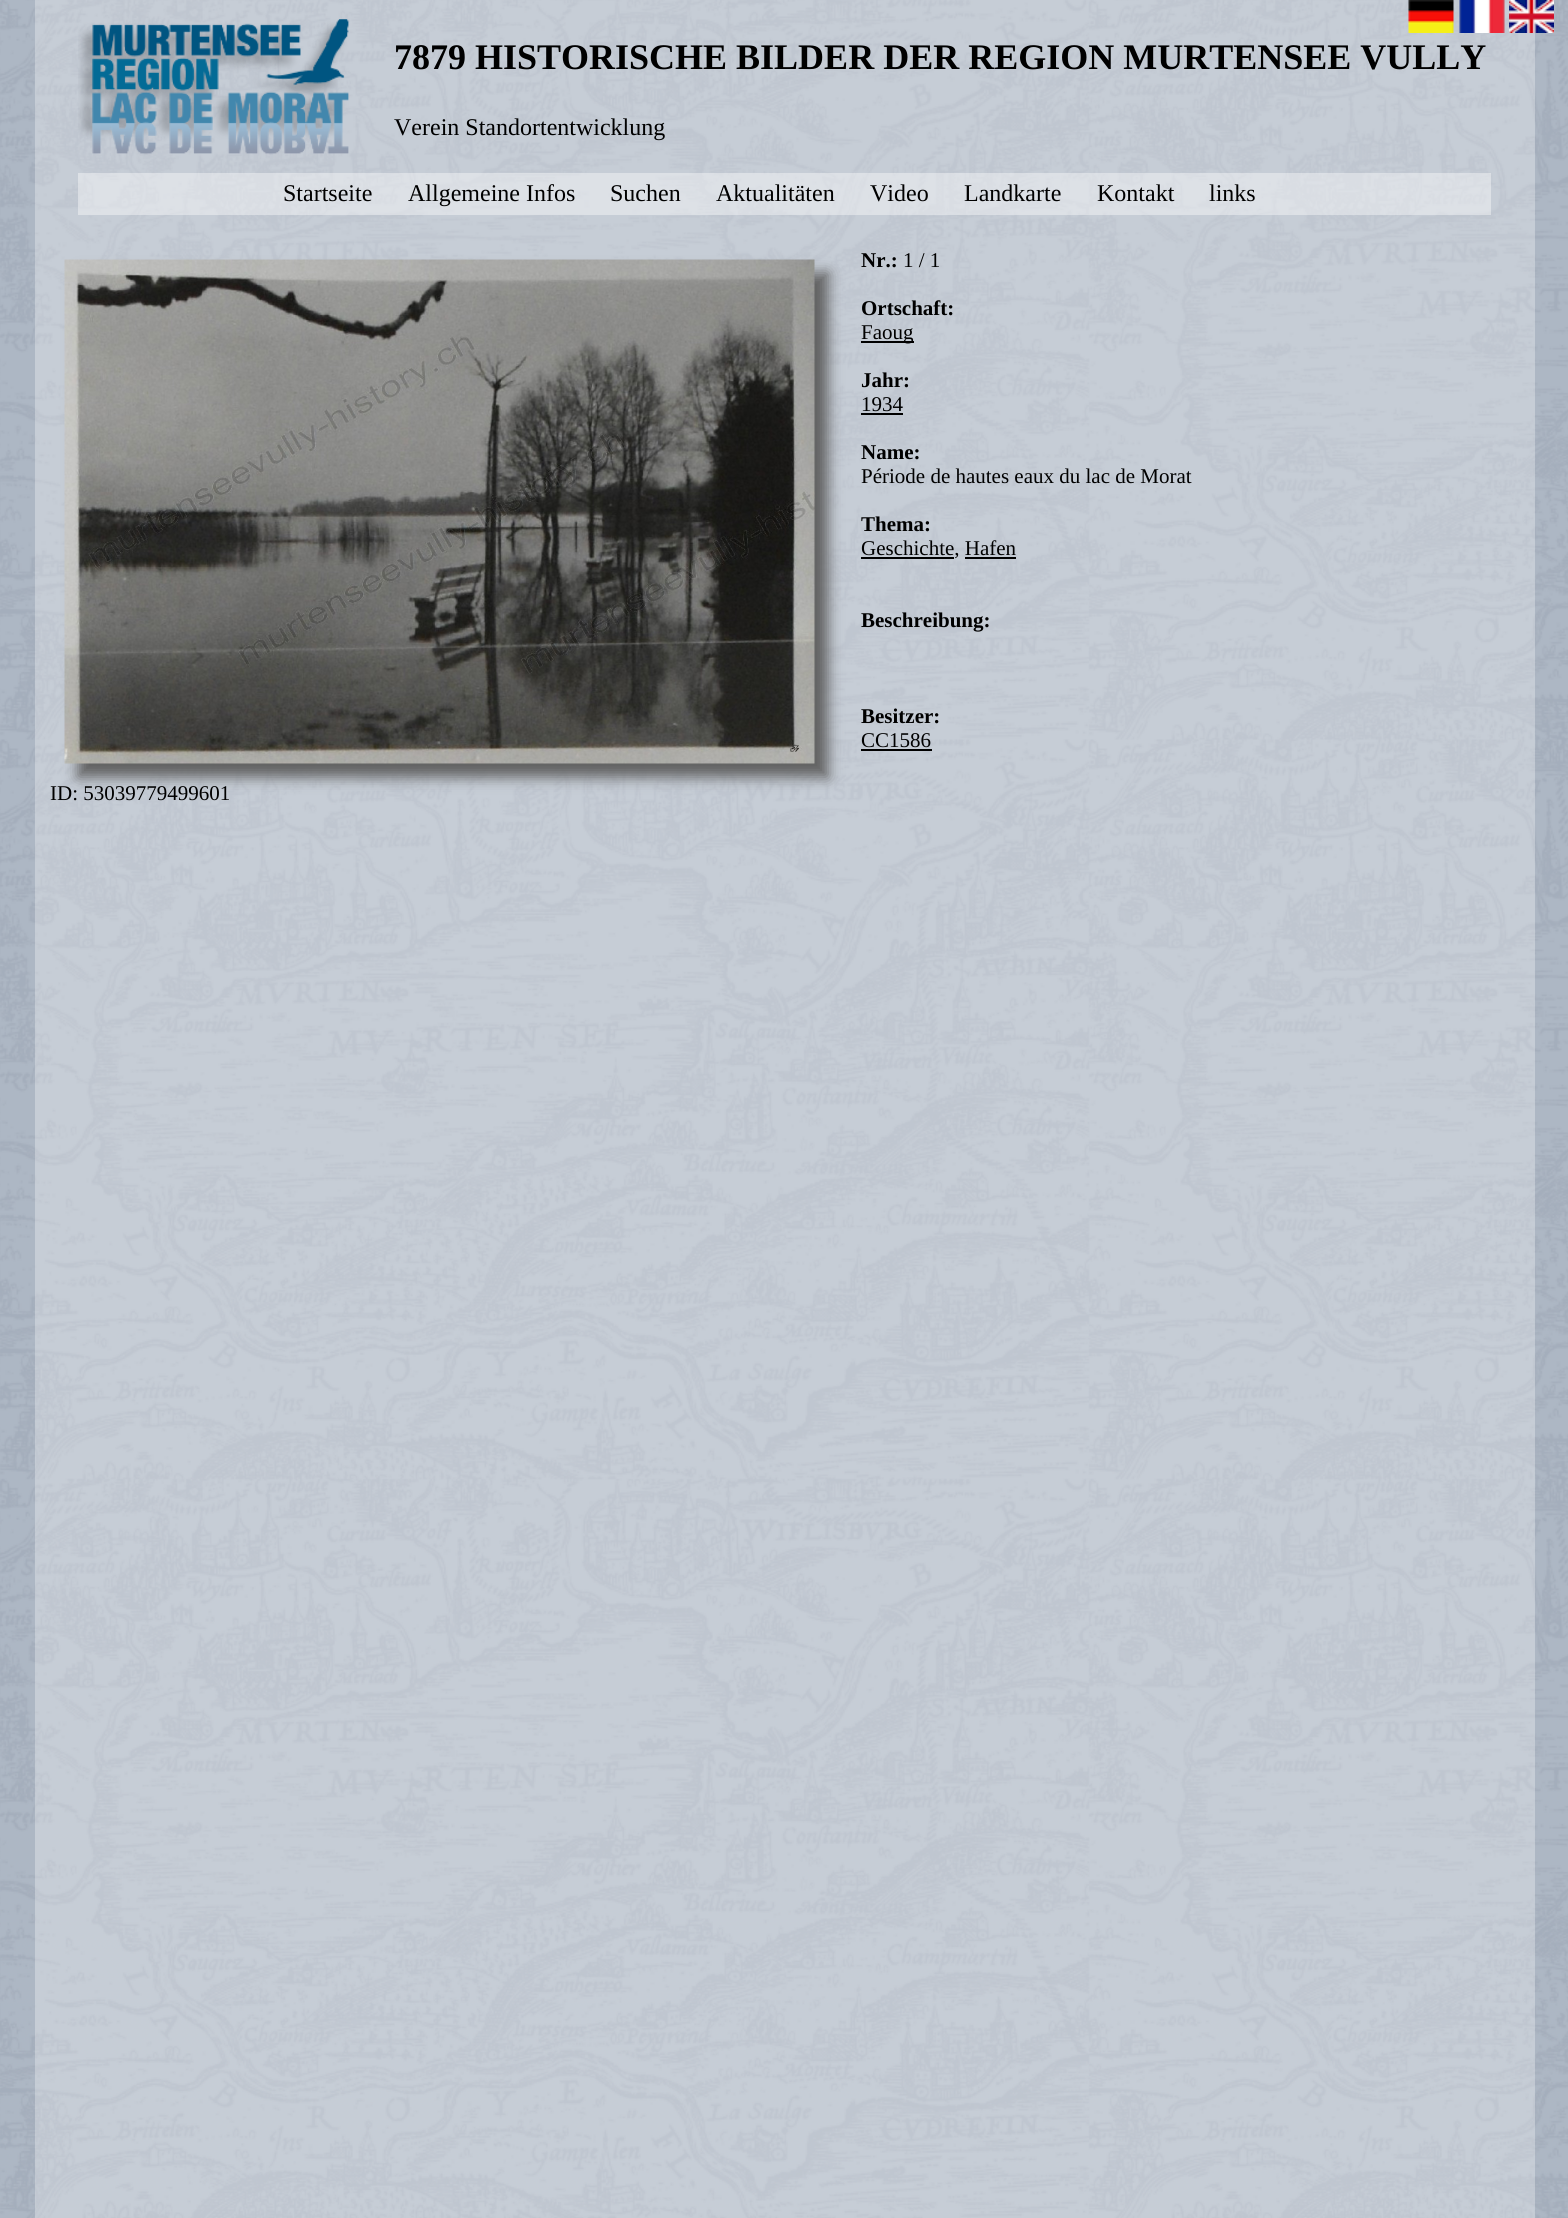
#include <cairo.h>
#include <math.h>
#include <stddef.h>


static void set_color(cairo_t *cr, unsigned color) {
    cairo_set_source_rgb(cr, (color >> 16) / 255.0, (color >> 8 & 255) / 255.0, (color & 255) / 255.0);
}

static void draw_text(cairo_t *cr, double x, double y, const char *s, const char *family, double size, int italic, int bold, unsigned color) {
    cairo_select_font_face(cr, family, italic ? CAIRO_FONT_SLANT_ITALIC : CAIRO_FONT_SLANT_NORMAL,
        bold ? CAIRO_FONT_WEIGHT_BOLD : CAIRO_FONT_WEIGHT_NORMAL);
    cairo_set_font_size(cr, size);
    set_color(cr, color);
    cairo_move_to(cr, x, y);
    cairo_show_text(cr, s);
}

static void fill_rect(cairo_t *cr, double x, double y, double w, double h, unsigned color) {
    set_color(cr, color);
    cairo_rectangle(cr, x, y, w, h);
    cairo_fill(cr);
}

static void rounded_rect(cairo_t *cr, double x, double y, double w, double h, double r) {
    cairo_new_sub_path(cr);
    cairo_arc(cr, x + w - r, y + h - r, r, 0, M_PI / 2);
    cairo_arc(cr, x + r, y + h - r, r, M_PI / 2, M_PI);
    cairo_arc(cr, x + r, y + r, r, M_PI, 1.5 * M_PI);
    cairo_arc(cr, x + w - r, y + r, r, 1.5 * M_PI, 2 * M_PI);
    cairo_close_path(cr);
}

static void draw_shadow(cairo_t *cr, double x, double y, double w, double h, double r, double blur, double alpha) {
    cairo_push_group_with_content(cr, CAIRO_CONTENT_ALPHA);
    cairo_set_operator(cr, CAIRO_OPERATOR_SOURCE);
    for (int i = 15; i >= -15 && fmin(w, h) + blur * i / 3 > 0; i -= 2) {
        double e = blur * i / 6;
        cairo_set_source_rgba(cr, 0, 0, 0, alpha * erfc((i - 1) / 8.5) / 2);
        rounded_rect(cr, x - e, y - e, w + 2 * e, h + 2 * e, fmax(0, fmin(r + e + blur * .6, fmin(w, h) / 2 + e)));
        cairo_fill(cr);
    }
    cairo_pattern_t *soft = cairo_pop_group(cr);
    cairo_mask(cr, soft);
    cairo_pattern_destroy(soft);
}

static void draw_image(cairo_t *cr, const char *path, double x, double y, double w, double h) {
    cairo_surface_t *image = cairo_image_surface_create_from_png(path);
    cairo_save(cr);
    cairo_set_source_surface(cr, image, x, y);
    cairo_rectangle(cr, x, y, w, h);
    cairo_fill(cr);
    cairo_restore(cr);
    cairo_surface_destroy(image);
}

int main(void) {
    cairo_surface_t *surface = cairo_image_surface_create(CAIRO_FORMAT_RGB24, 1568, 2218);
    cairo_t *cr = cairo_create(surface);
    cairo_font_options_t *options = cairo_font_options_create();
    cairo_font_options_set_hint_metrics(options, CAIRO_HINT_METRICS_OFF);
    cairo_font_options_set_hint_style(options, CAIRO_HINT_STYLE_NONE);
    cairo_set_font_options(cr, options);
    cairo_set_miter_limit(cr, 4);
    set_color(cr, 0xFFFFFF);
    cairo_paint(cr);
    draw_image(cr, "assets/img1.png", 0, 0, 1568, 2218);
    draw_image(cr, "assets/img2.png", 78, 19, 271, 136);
    draw_text(cr, 394, 69, "7879 HISTORISCHE BILDER DER REGION MURTENSEE VULLY", "Liberation Serif", 36, 0, 1, 0x000000);
    draw_text(cr, 394, 135, "Verein Standortentwicklung", "Liberation Serif", 24, 0, 0, 0x000000);
    draw_image(cr, "assets/img3.png", 1408, 0, 46, 33);
    draw_image(cr, "assets/img4.png", 1459, 0, 46, 33);
    draw_image(cr, "assets/img5.png", 1509, 0, 45, 33);
    cairo_set_source_rgba(cr, 1, 1, 1, 0.4);
    cairo_rectangle(cr, 78, 173, 1413, 42);
    cairo_fill(cr);
    draw_text(cr, 283, 201, "Startseite", "Liberation Serif", 24, 0, 0, 0x000000);
    draw_text(cr, 408, 201, "Allgemeine Infos", "Liberation Serif", 24, 0, 0, 0x000000);
    draw_text(cr, 610, 201, "Suchen", "Liberation Serif", 24, 0, 0, 0x000000);
    draw_text(cr, 716, 201, "Aktualitäten", "Liberation Serif", 24, 0, 0, 0x000000);
    draw_text(cr, 870, 201, "Video", "Liberation Serif", 24, 0, 0, 0x000000);
    draw_text(cr, 964, 201, "Landkarte", "Liberation Serif", 24, 0, 0, 0x000000);
    draw_text(cr, 1097, 201, "Kontakt", "Liberation Serif", 24, 0, 0, 0x000000);
    draw_text(cr, 1209, 201, "links", "Liberation Serif", 24, 0, 0, 0x000000);
    set_color(cr, 0x606060);
    draw_shadow(cr, 78, 273, 750, 504, 0, 7, 1);
    draw_image(cr, "assets/img6.png", 64, 259, 751, 505);
    draw_text(cr, 861, 267, "Nr.:", "Liberation Serif", 21, 0, 1, 0x000000);
    draw_text(cr, 903, 267, "1 / 1", "Liberation Serif", 21, 0, 0, 0x000000);
    draw_text(cr, 861, 315, "Ortschaft:", "Liberation Serif", 21, 0, 1, 0x000000);
    fill_rect(cr, 861, 341, 53, 2, 0x000000);
    draw_text(cr, 861, 339, "Faoug", "Liberation Serif", 21, 0, 0, 0x000000);
    draw_text(cr, 861, 387, "Jahr:", "Liberation Serif", 21, 0, 1, 0x000000);
    draw_text(cr, 861, 411, "1934", "Liberation Serif", 21, 0, 0, 0x000000);
    fill_rect(cr, 861, 413, 42, 2, 0x000000);
    draw_text(cr, 861, 459, "Name:", "Liberation Serif", 21, 0, 1, 0x000000);
    draw_text(cr, 861, 483, "Période de hautes eaux du lac de Morat", "Liberation Serif", 21, 0, 0, 0x000000);
    draw_text(cr, 861, 531, "Thema:", "Liberation Serif", 21, 0, 1, 0x000000);
    fill_rect(cr, 861, 557, 93, 2, 0x000000);
    draw_text(cr, 861, 555, "Geschichte, Hafen", "Liberation Serif", 21, 0, 0, 0x000000);
    fill_rect(cr, 965, 557, 51, 2, 0x000000);
    draw_text(cr, 861, 627, "Beschreibung:", "Liberation Serif", 21, 0, 1, 0x000000);
    draw_text(cr, 861, 723, "Besitzer:", "Liberation Serif", 21, 0, 1, 0x000000);
    draw_text(cr, 861, 747, "CC1586", "Liberation Serif", 21, 0, 0, 0x000000);
    fill_rect(cr, 861, 749, 71, 2, 0x000000);
    draw_text(cr, 50, 800, "ID: 53039779499601", "Liberation Serif", 21, 0, 0, 0x000000);
    cairo_surface_write_to_png(surface, "output.png");
    cairo_font_options_destroy(options);
    cairo_destroy(cr);
    cairo_surface_destroy(surface);
    return 0;
}
